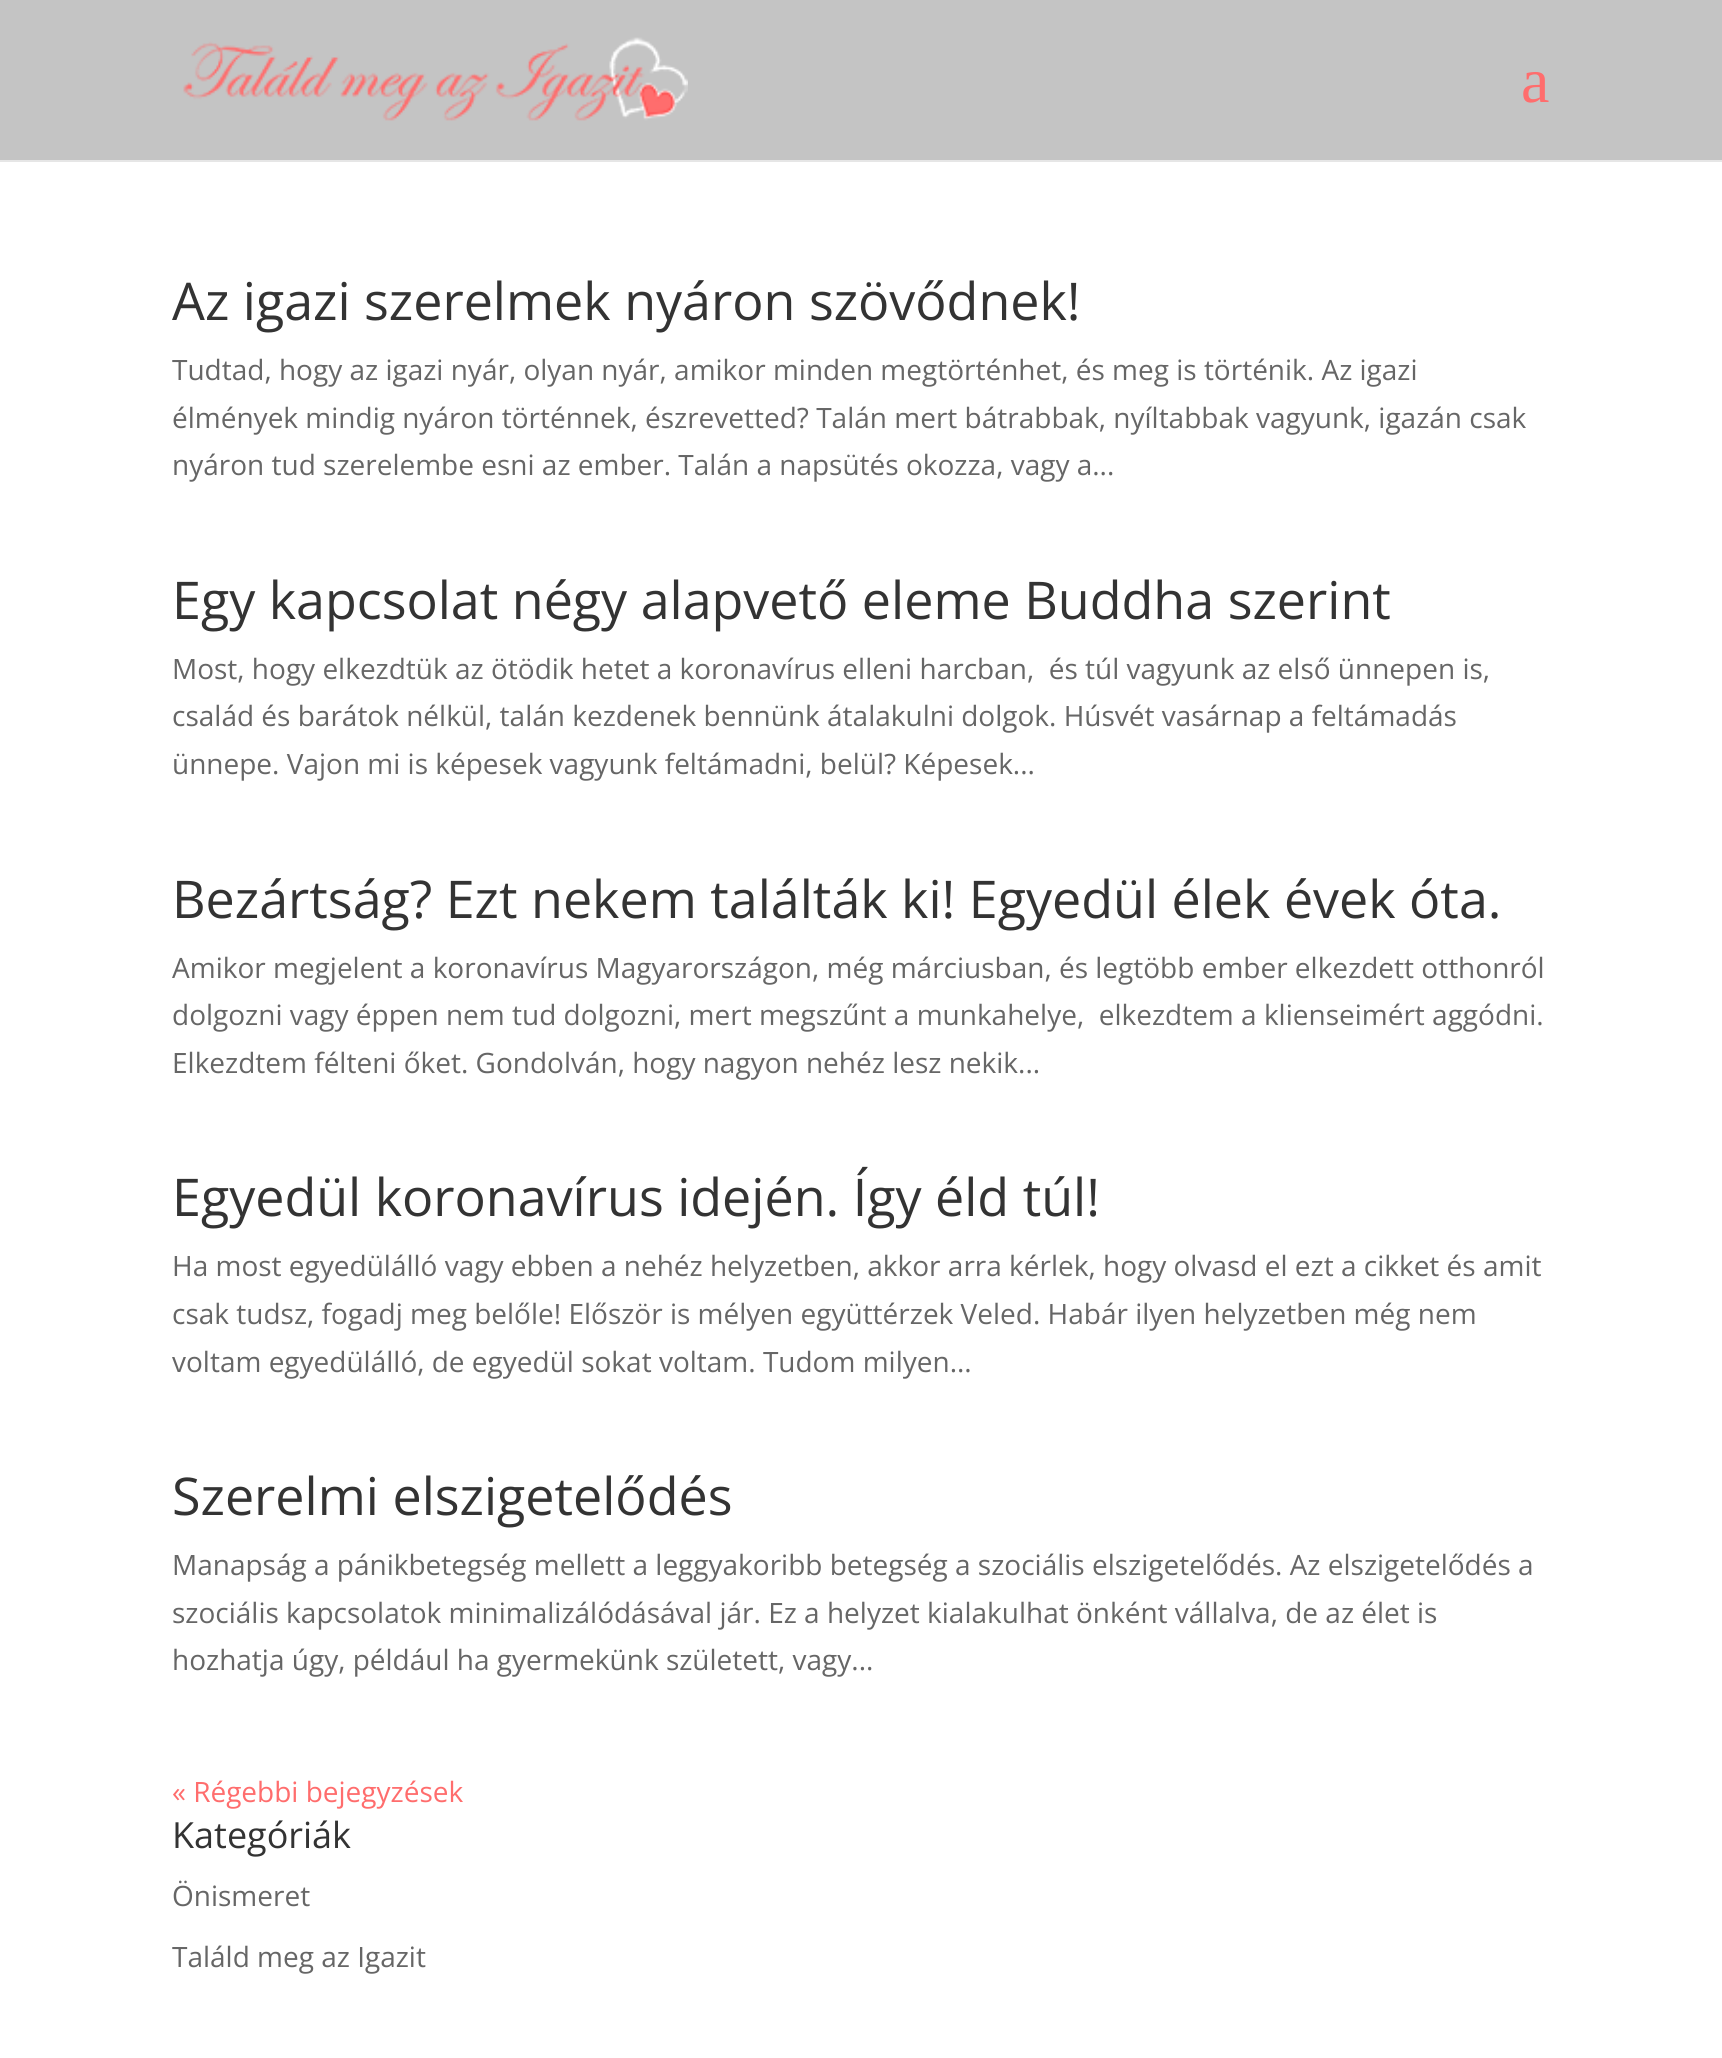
#include <cairo.h>
#include <math.h>
#include <stddef.h>


static void set_color(cairo_t *cr, unsigned color) {
    cairo_set_source_rgb(cr, (color >> 16) / 255.0, (color >> 8 & 255) / 255.0, (color & 255) / 255.0);
}

static void draw_text(cairo_t *cr, double x, double y, const char *s, const char *family, double size, int italic, int bold, unsigned color) {
    cairo_select_font_face(cr, family, italic ? CAIRO_FONT_SLANT_ITALIC : CAIRO_FONT_SLANT_NORMAL,
        bold ? CAIRO_FONT_WEIGHT_BOLD : CAIRO_FONT_WEIGHT_NORMAL);
    cairo_set_font_size(cr, size);
    set_color(cr, color);
    cairo_move_to(cr, x, y);
    cairo_show_text(cr, s);
}

static void fill_rect(cairo_t *cr, double x, double y, double w, double h, unsigned color) {
    set_color(cr, color);
    cairo_rectangle(cr, x, y, w, h);
    cairo_fill(cr);
}

static void draw_image(cairo_t *cr, const char *path, double x, double y, double w, double h) {
    cairo_surface_t *image = cairo_image_surface_create_from_png(path);
    cairo_save(cr);
    cairo_set_source_surface(cr, image, x, y);
    cairo_rectangle(cr, x, y, w, h);
    cairo_fill(cr);
    cairo_restore(cr);
    cairo_surface_destroy(image);
}

int main(void) {
    cairo_surface_t *surface = cairo_image_surface_create(CAIRO_FORMAT_RGB24, 1722, 2058);
    cairo_t *cr = cairo_create(surface);
    cairo_font_options_t *options = cairo_font_options_create();
    cairo_font_options_set_hint_metrics(options, CAIRO_HINT_METRICS_OFF);
    cairo_font_options_set_hint_style(options, CAIRO_HINT_STYLE_NONE);
    cairo_set_font_options(cr, options);
    cairo_set_miter_limit(cr, 4);
    set_color(cr, 0xFFFFFF);
    cairo_paint(cr);
    fill_rect(cr, 0, 160, 1722, 2, 0xE6E6E6);
    fill_rect(cr, 0, 0, 1722, 160, 0xC4C4C4);
    draw_image(cr, "assets/img1.png", 183, 37, 505, 84);
    draw_text(cr, 1521, 102, "a", "Liberation Serif", 64, 0, 0, 0xFF6D6D);
    draw_text(cr, 172, 320, "Az igazi szerelmek nyáron szövődnek!", "Open Sans", 52, 0, 0, 0x333333);
    draw_text(cr, 172, 380, "Tudtad, hogy az igazi nyár, olyan nyár, amikor minden megtörténhet, és meg is történik. Az igazi", "Open Sans", 28, 0, 0, 0x666666);
    draw_text(cr, 172, 428, "élmények mindig nyáron történnek, észrevetted? Talán mert bátrabbak, nyíltabbak vagyunk, igazán csak", "Open Sans", 28, 0, 0, 0x666666);
    draw_text(cr, 172, 475, "nyáron tud szerelembe esni az ember. Talán a napsütés okozza, vagy a...", "Open Sans", 28, 0, 0, 0x666666);
    draw_text(cr, 172, 619, "Egy kapcsolat négy alapvető eleme Buddha szerint", "Open Sans", 52, 0, 0, 0x333333);
    draw_text(cr, 172, 679, "Most, hogy elkezdtük az ötödik hetet a koronavírus elleni harcban,  és túl vagyunk az első ünnepen is,", "Open Sans", 28, 0, 0, 0x666666);
    draw_text(cr, 172, 726, "család és barátok nélkül, talán kezdenek bennünk átalakulni dolgok. Húsvét vasárnap a feltámadás", "Open Sans", 28, 0, 0, 0x666666);
    draw_text(cr, 172, 774, "ünnepe. Vajon mi is képesek vagyunk feltámadni, belül? Képesek...", "Open Sans", 28, 0, 0, 0x666666);
    draw_text(cr, 172, 918, "Bezártság? Ezt nekem találták ki! Egyedül élek évek óta.", "Open Sans", 52, 0, 0, 0x333333);
    draw_text(cr, 172, 978, "Amikor megjelent a koronavírus Magyarországon, még márciusban, és legtöbb ember elkezdett otthonról", "Open Sans", 28, 0, 0, 0x666666);
    draw_text(cr, 172, 1025, "dolgozni vagy éppen nem tud dolgozni, mert megszűnt a munkahelye,  elkezdtem a klienseimért aggódni.", "Open Sans", 28, 0, 0, 0x666666);
    draw_text(cr, 172, 1073, "Elkezdtem félteni őket. Gondolván, hogy nagyon nehéz lesz nekik...", "Open Sans", 28, 0, 0, 0x666666);
    draw_text(cr, 172, 1216, "Egyedül koronavírus idején. Így éld túl!", "Open Sans", 52, 0, 0, 0x333333);
    draw_text(cr, 172, 1276, "Ha most egyedülálló vagy ebben a nehéz helyzetben, akkor arra kérlek, hogy olvasd el ezt a cikket és amit", "Open Sans", 28, 0, 0, 0x666666);
    draw_text(cr, 172, 1324, "csak tudsz, fogadj meg belőle! Először is mélyen együttérzek Veled. Habár ilyen helyzetben még nem", "Open Sans", 28, 0, 0, 0x666666);
    draw_text(cr, 172, 1372, "voltam egyedülálló, de egyedül sokat voltam. Tudom milyen...", "Open Sans", 28, 0, 0, 0x666666);
    draw_text(cr, 172, 1515, "Szerelmi elszigetelődés", "Open Sans", 52, 0, 0, 0x333333);
    draw_text(cr, 172, 1575, "Manapság a pánikbetegség mellett a leggyakoribb betegség a szociális elszigetelődés. Az elszigetelődés a", "Open Sans", 28, 0, 0, 0x666666);
    draw_text(cr, 172, 1623, "szociális kapcsolatok minimalizálódásával jár. Ez a helyzet kialakulhat önként vállalva, de az élet is", "Open Sans", 28, 0, 0, 0x666666);
    draw_text(cr, 172, 1670, "hozhatja úgy, például ha gyermekünk született, vagy...", "Open Sans", 28, 0, 0, 0x666666);
    draw_text(cr, 172, 1802, "« Régebbi bejegyzések", "Open Sans", 28, 0, 0, 0xFF6D6D);
    draw_text(cr, 172, 1848, "Kategóriák", "Open Sans", 36, 0, 0, 0x333333);
    draw_text(cr, 172, 1906, "Önismeret", "Open Sans", 28, 0, 0, 0x666666);
    draw_text(cr, 172, 1967, "Találd meg az Igazit", "Open Sans", 28, 0, 0, 0x666666);
    cairo_surface_write_to_png(surface, "output.png");
    cairo_font_options_destroy(options);
    cairo_destroy(cr);
    cairo_surface_destroy(surface);
    return 0;
}
